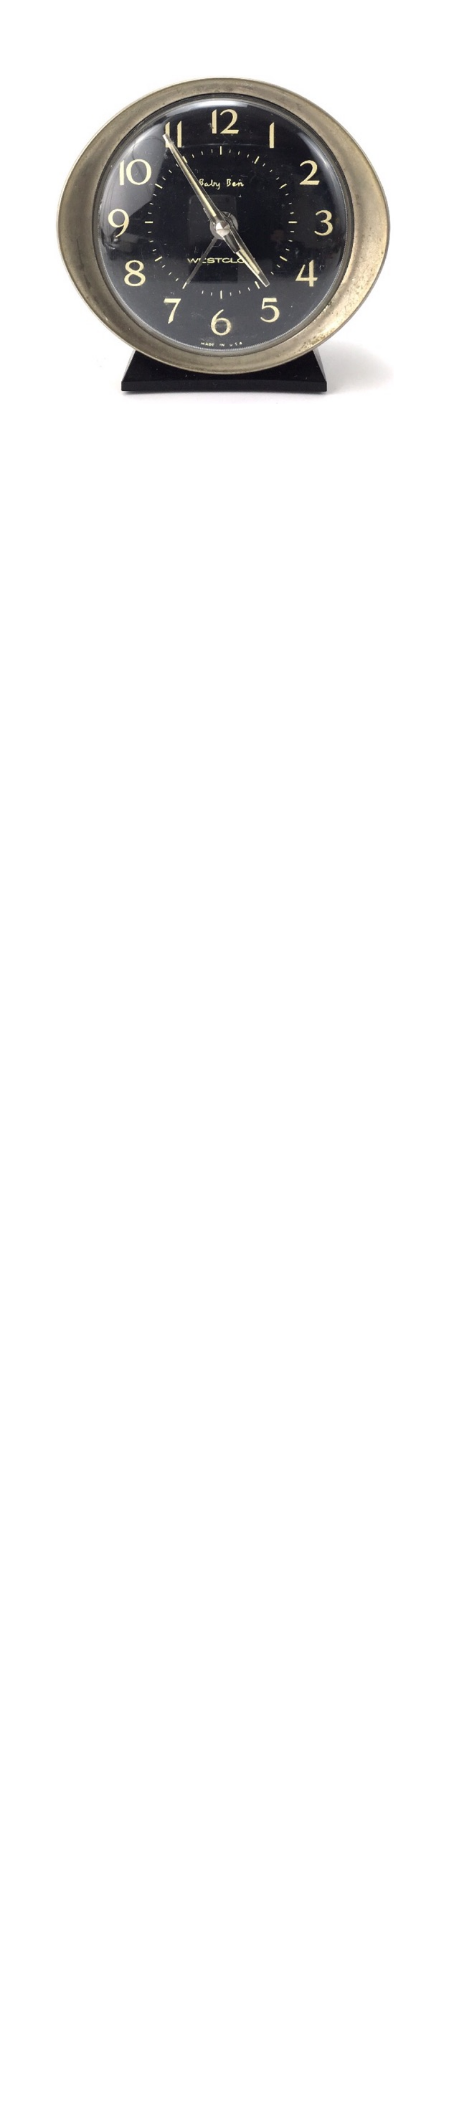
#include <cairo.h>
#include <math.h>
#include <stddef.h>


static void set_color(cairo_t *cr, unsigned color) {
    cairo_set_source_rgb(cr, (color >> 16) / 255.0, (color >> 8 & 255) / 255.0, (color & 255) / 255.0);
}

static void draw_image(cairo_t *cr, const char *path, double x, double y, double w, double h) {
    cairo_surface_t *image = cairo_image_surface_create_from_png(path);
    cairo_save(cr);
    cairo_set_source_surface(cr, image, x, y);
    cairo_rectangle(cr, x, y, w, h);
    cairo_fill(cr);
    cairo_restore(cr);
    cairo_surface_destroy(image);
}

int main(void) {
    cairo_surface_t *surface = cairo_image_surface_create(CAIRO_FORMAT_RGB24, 459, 2108);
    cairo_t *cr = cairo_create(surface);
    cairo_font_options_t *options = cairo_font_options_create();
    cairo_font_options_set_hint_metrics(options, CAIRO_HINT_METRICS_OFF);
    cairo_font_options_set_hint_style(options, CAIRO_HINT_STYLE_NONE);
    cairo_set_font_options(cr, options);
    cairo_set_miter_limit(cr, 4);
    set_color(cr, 0xFFFFFF);
    cairo_paint(cr);
    draw_image(cr, "assets/img1.png", 54, 75, 340, 329);
    cairo_surface_write_to_png(surface, "output.png");
    cairo_font_options_destroy(options);
    cairo_destroy(cr);
    cairo_surface_destroy(surface);
    return 0;
}
